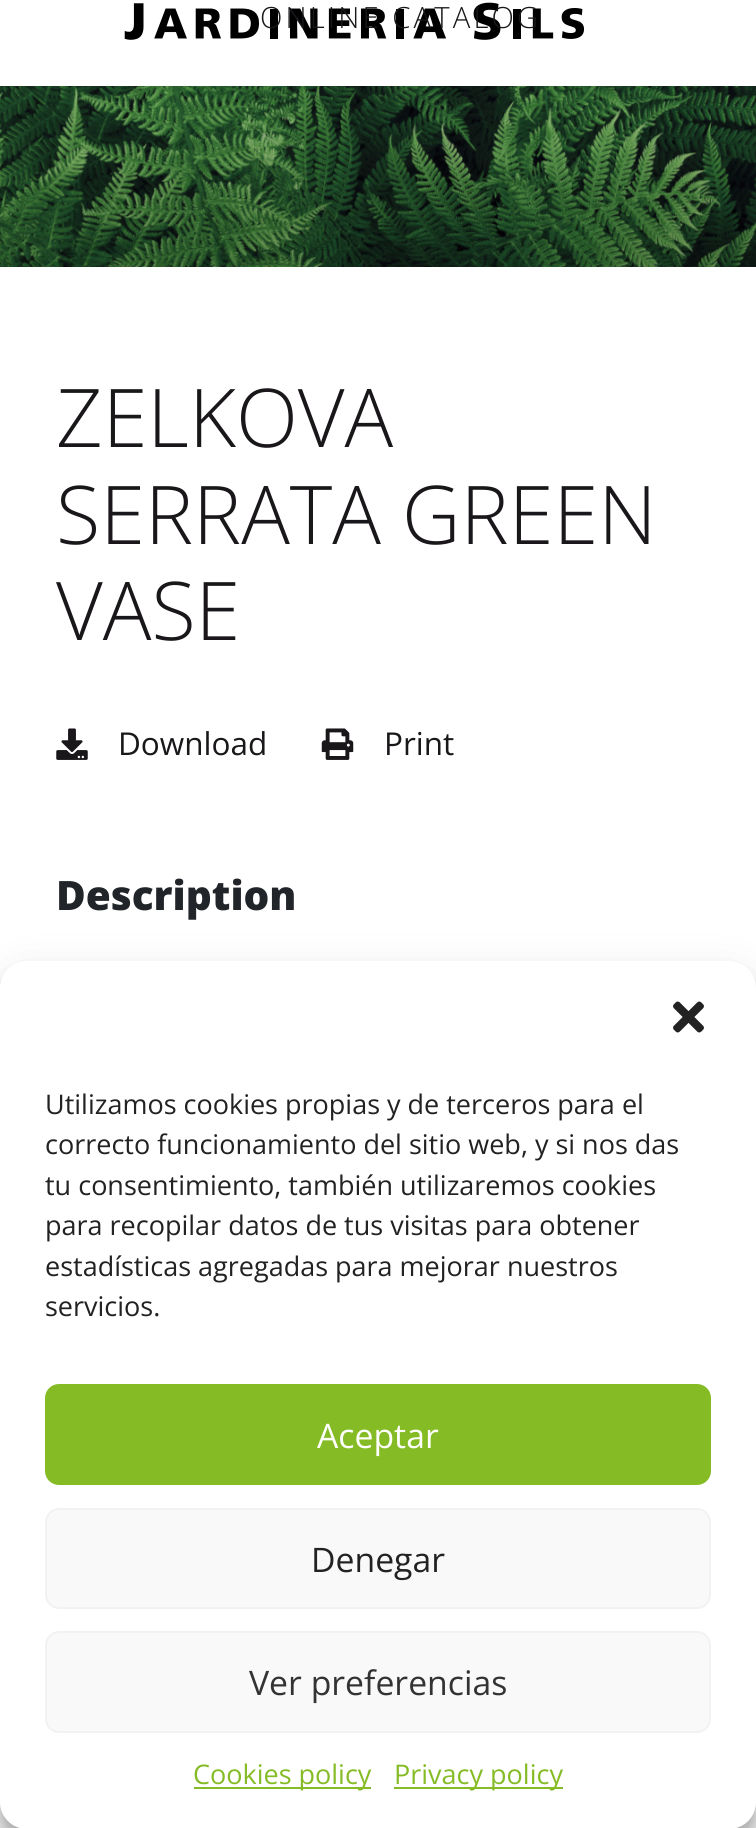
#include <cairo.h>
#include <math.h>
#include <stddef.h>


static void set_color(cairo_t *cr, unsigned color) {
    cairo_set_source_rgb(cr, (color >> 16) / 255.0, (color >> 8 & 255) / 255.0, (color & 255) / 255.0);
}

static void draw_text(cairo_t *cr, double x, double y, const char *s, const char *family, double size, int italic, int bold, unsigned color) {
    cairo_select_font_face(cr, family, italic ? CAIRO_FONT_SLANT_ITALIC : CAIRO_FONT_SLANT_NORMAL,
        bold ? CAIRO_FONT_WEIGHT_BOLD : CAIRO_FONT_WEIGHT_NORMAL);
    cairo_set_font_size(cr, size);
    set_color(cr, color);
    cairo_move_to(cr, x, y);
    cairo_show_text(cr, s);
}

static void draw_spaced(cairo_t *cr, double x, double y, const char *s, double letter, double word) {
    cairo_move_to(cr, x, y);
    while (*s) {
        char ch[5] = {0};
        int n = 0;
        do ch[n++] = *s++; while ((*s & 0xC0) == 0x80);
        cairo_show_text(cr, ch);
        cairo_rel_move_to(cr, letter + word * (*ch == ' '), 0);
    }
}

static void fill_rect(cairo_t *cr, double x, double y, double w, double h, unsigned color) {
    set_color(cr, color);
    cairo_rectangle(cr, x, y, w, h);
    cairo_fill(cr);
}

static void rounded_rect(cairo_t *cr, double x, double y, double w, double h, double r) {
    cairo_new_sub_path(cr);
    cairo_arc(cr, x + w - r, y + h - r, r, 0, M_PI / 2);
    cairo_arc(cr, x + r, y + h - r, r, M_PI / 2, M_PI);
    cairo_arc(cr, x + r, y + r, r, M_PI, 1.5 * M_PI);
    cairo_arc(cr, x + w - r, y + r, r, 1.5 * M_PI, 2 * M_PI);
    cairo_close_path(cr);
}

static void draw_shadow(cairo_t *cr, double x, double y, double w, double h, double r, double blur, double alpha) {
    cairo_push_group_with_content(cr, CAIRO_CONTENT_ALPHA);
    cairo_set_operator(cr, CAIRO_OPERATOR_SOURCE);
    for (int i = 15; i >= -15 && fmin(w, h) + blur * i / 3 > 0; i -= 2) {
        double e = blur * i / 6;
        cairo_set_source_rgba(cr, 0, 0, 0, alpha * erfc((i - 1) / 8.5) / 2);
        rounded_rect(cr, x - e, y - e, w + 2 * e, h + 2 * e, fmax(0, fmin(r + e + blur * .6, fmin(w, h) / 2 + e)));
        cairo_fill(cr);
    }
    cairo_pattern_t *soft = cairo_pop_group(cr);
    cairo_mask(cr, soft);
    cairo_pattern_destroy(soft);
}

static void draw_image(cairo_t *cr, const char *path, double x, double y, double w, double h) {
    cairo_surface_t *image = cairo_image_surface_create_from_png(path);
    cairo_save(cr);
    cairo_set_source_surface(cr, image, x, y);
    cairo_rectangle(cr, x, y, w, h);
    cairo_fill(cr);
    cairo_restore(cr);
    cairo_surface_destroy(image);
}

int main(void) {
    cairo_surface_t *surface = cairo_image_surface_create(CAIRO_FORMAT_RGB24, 756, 1828);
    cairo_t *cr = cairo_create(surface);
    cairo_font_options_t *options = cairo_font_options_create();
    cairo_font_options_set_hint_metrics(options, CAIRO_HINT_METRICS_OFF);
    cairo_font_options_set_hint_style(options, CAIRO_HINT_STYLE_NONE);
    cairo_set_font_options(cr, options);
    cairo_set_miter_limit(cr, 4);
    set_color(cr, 0xFFFFFF);
    cairo_paint(cr);
    draw_image(cr, "assets/img1.png", 124, 2, 460, 38);
    cairo_select_font_face(cr, "Open Sans Light", CAIRO_FONT_SLANT_NORMAL, CAIRO_FONT_WEIGHT_NORMAL);
    cairo_set_font_size(cr, 29.25);
    set_color(cr, 0x1A171B);
    draw_spaced(cr, 260, 28, "ONLINE CATALOG", 3.1, 0);
    draw_text(cr, 56, 447, "ZELKOVA", "Open Sans Light", 81, 0, 0, 0x1A171B);
    draw_text(cr, 56, 544, "SERRATA GREEN", "Open Sans Light", 81, 0, 0, 0x1A171B);
    draw_text(cr, 56, 640, "VASE", "Open Sans Light", 81, 0, 0, 0x1A171B);
    draw_image(cr, "assets/img2.png", 56, 728, 32, 32);
    draw_text(cr, 118, 755, "Download", "Open Sans", 31.5, 0, 0, 0x1A171B);
    draw_image(cr, "assets/img3.png", 321, 728, 33, 32);
    draw_text(cr, 384, 755, "Print", "Open Sans", 31.5, 0, 0, 0x1A171B);
    draw_text(cr, 56, 910, "Description", "Open Sans ExtraBold", 40.5, 0, 0, 0x212529);
    draw_image(cr, "assets/img4.png", 0, 86, 756, 181);
    set_color(cr, 0x000000);
    draw_shadow(cr, 0, 974, 756, 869, 27, 7, 0.23);
    draw_shadow(cr, 0, 983, 756, 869, 27, 22.5, 0.19);
    set_color(cr, 0x808080);
    draw_shadow(cr, 599, 1663, 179, 135, 5, 5.5, 1);
    set_color(cr, 0xFFFFFF);
    rounded_rect(cr, 0, 961, 756, 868, 27);
    cairo_fill(cr);
    draw_image(cr, "assets/img5.png", 673, 1001, 31, 32);
    draw_text(cr, 45, 1114, "Utilizamos cookies propias y de terceros para el", "Open Sans", 27, 0, 0, 0x222222);
    draw_text(cr, 45, 1154, "correcto funcionamiento del sitio web, y si nos das", "Open Sans", 27, 0, 0, 0x222222);
    draw_text(cr, 45, 1195, "tu consentimiento, también utilizaremos cookies", "Open Sans", 27, 0, 0, 0x222222);
    draw_text(cr, 45, 1235, "para recopilar datos de tus visitas para obtener", "Open Sans", 27, 0, 0, 0x222222);
    draw_text(cr, 45, 1276, "estadísticas agregadas para mejorar nuestros", "Open Sans", 27, 0, 0, 0x222222);
    draw_text(cr, 45, 1316, "servicios.", "Open Sans", 27, 0, 0, 0x222222);
    set_color(cr, 0x85BC26);
    rounded_rect(cr, 46, 1385, 664, 99, 13);
    cairo_fill_preserve(cr);
    cairo_stroke(cr);
    draw_text(cr, 317, 1448, "Aceptar", "Open Sans", 33.75, 0, 0, 0xFFFFFF);
    set_color(cr, 0xF9F9F9);
    rounded_rect(cr, 46, 1509, 664, 99, 13);
    cairo_fill_preserve(cr);
    set_color(cr, 0xF2F2F2);
    cairo_stroke(cr);
    draw_text(cr, 311, 1572, "Denegar", "Open Sans", 33.75, 0, 0, 0x222222);
    set_color(cr, 0xF9F9F9);
    rounded_rect(cr, 46, 1632, 664, 100, 13);
    cairo_fill_preserve(cr);
    set_color(cr, 0xF2F2F2);
    cairo_stroke(cr);
    draw_text(cr, 249, 1695, "Ver preferencias", "Open Sans", 33.75, 0, 0, 0x333333);
    fill_rect(cr, 194, 1787, 177, 2, 0x85BC26);
    draw_text(cr, 193, 1784, "Cookies policy", "Open Sans", 27, 0, 0, 0x85BC26);
    fill_rect(cr, 394, 1787, 169, 2, 0x85BC26);
    draw_text(cr, 394, 1784, "Privacy policy", "Open Sans", 27, 0, 0, 0x85BC26);
    cairo_surface_write_to_png(surface, "output.png");
    cairo_font_options_destroy(options);
    cairo_destroy(cr);
    cairo_surface_destroy(surface);
    return 0;
}
